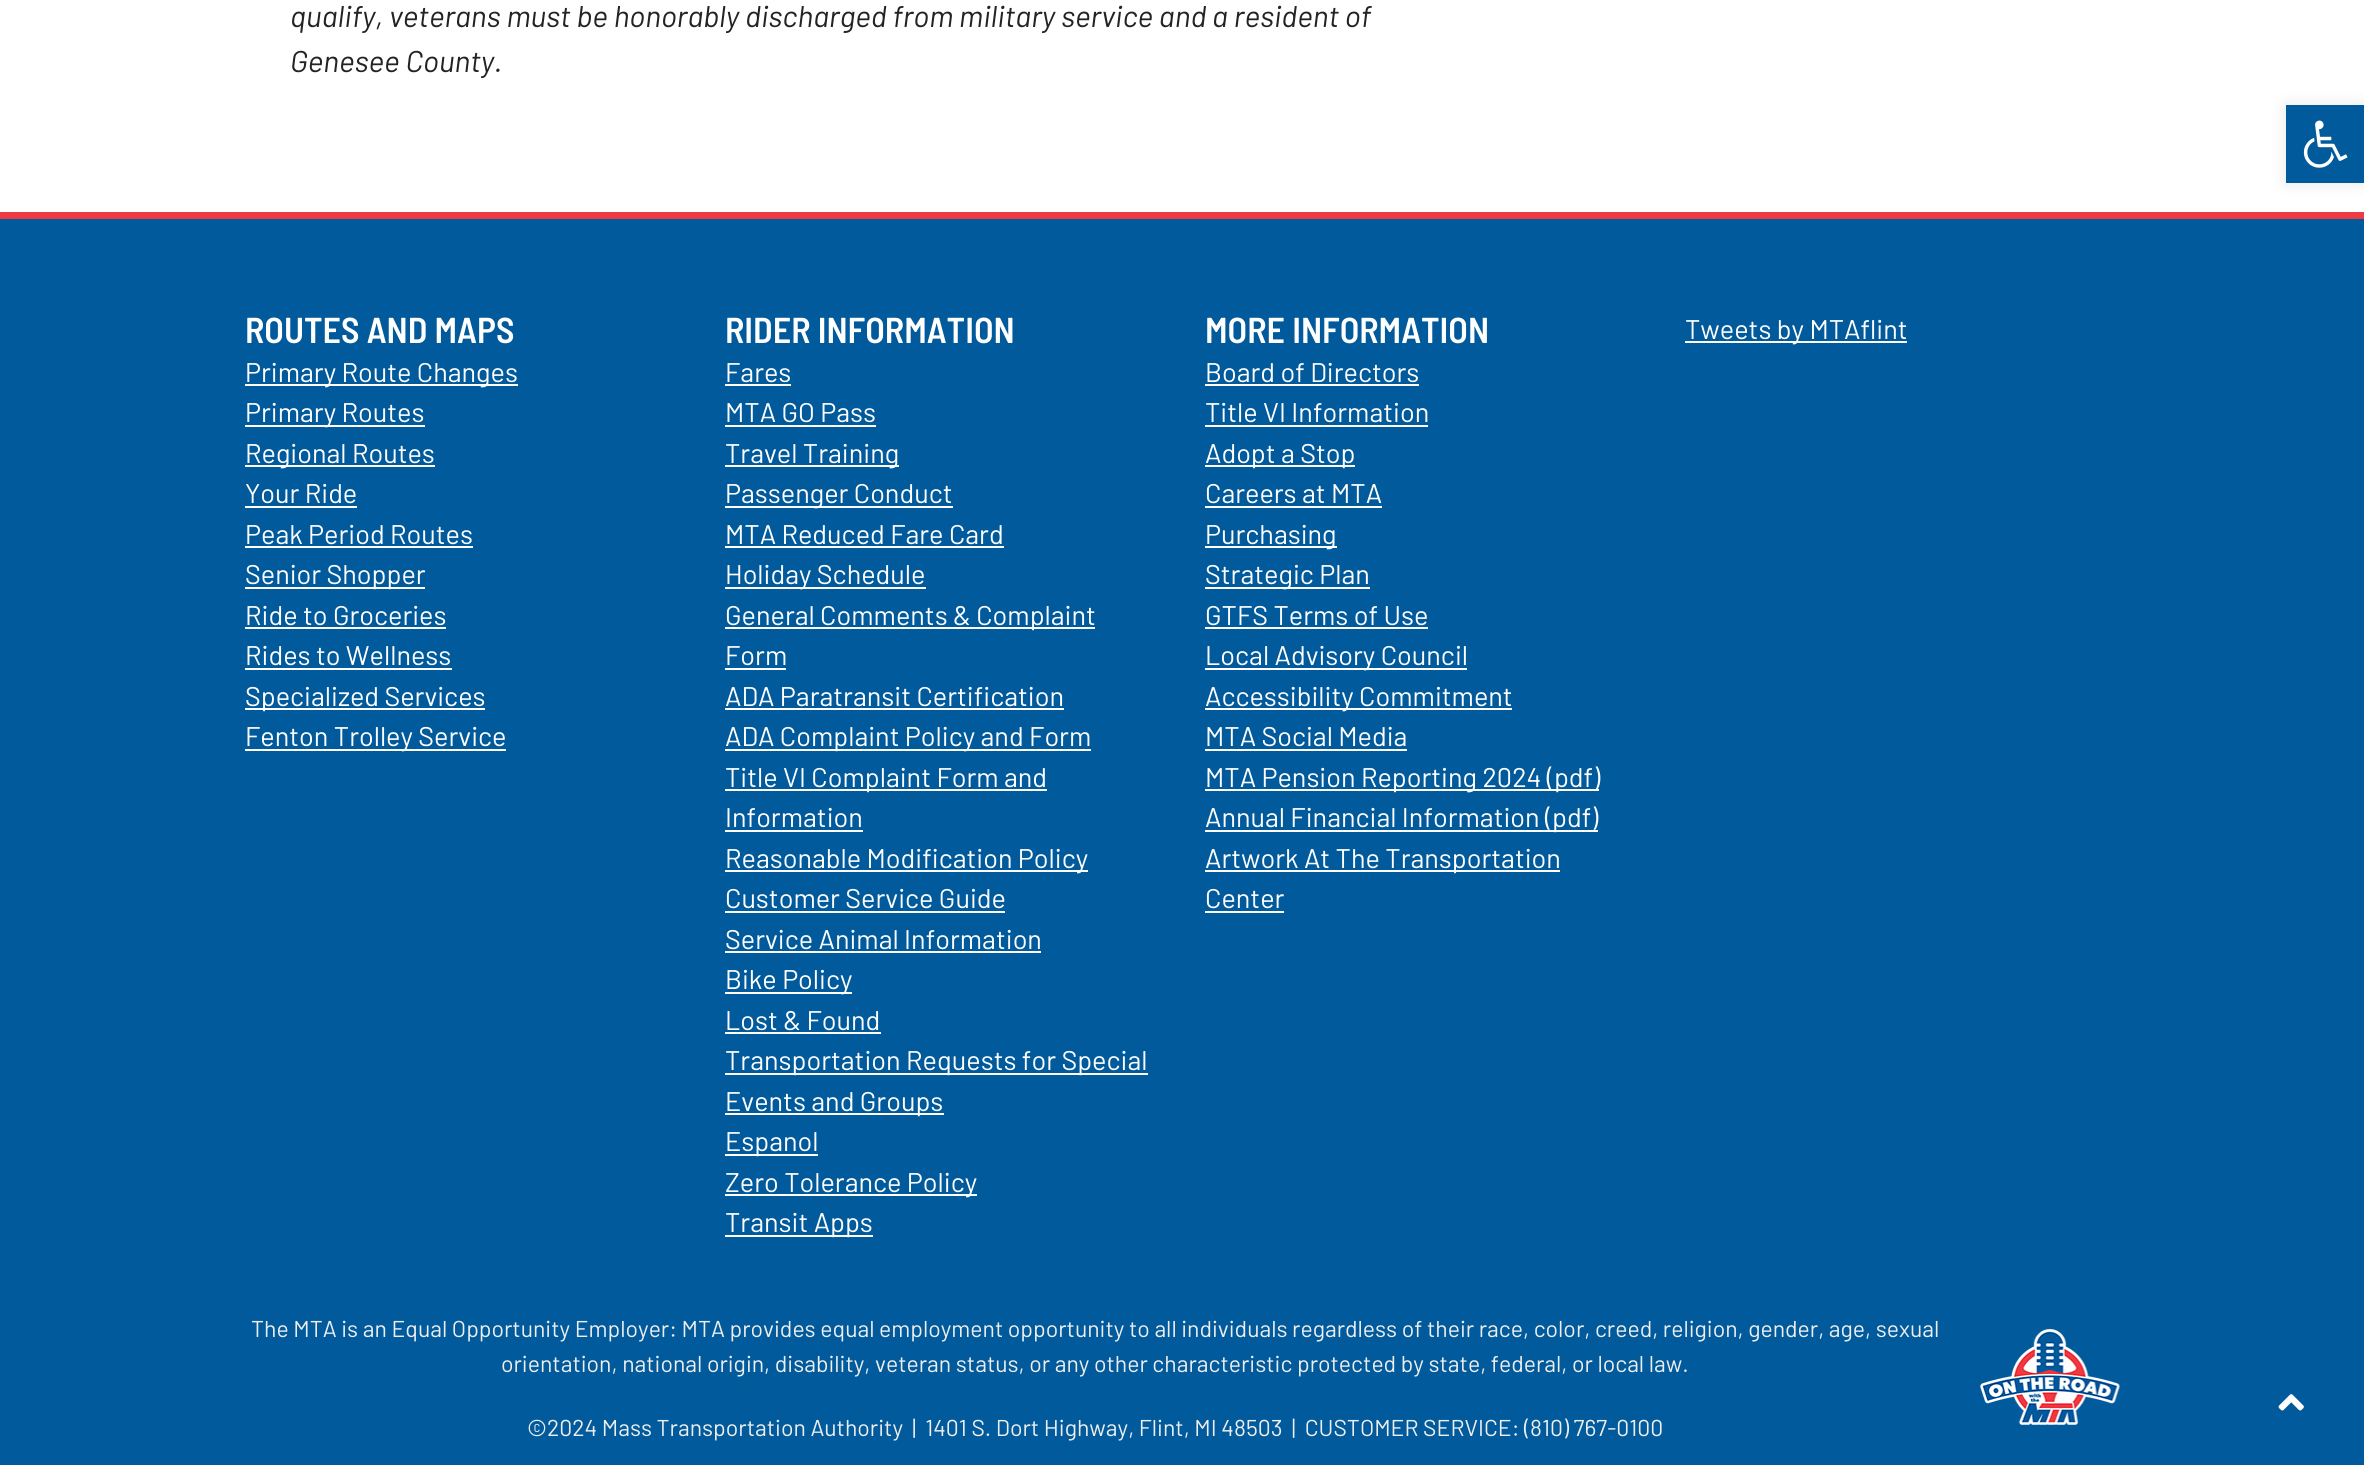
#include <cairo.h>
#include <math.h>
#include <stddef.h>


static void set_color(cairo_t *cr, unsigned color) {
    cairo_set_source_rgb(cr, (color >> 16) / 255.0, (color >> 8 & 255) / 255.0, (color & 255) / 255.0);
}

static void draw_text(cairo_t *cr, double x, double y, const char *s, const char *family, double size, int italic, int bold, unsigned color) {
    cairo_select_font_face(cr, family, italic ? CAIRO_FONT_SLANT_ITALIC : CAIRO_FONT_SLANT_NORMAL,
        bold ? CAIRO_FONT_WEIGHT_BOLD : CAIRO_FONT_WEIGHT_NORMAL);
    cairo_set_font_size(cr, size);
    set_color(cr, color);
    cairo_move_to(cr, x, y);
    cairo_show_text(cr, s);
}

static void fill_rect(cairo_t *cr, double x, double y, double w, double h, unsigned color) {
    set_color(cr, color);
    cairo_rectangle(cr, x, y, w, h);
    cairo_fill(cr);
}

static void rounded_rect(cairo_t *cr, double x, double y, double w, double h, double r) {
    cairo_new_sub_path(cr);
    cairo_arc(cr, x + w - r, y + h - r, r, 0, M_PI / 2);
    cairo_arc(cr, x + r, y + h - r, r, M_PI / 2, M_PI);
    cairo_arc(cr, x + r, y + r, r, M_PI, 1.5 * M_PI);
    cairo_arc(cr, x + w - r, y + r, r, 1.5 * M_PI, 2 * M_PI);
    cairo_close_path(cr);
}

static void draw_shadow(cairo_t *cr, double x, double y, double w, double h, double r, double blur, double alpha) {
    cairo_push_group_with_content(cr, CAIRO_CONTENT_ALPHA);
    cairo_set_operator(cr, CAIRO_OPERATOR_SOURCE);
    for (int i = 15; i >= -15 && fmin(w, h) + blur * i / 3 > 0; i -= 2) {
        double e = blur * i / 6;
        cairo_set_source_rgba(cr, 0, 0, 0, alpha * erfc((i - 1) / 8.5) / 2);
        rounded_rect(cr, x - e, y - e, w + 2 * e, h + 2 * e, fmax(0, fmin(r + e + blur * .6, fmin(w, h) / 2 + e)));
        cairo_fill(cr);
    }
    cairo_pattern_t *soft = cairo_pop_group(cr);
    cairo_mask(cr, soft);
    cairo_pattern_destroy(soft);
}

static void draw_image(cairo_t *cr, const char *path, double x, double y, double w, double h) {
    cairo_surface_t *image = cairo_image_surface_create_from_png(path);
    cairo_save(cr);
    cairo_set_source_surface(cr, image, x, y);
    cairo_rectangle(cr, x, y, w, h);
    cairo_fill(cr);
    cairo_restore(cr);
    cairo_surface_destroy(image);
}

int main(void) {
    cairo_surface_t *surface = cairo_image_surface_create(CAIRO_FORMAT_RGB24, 2364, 1465);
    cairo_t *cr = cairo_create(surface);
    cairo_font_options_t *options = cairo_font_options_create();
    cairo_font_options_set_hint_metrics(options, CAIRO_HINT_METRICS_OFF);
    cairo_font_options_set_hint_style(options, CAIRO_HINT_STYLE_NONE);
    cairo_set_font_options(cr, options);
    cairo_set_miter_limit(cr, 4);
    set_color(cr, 0xFFFFFF);
    cairo_paint(cr);
    draw_text(cr, 290, 27, "qualify, veterans must be honorably discharged from military service and a resident of", "Barlow", 30, 1, 0, 0x232323);
    draw_text(cr, 290, 72, "Genesee County.", "Barlow", 30, 1, 0, 0x232323);
    set_color(cr, 0x000000);
    draw_shadow(cr, 2286, 105, 78, 78, 0, 7.5, 0.1);
    fill_rect(cr, 2286, 105, 78, 78, 0x005A9C);
    draw_image(cr, "assets/img1.png", 2303, 120, 45, 48);
    fill_rect(cr, 0, 219, 2364, 1246, 0x005A9C);
    fill_rect(cr, 0, 212, 2364, 7, 0xEE3A43);
    draw_text(cr, 245, 343, "ROUTES AND MAPS", "Barlow Semi Condensed SemiBold", 36, 0, 0, 0xFFFFFF);
    fill_rect(cr, 245, 384, 273, 2, 0xFFFFFF);
    draw_text(cr, 245, 382, "Primary Route Changes", "Barlow", 27, 0, 0, 0xFFFFFF);
    fill_rect(cr, 245, 425, 180, 2, 0xFFFFFF);
    draw_text(cr, 245, 422, "Primary Routes", "Barlow", 27, 0, 0, 0xFFFFFF);
    fill_rect(cr, 245, 465, 190, 2, 0xFFFFFF);
    draw_text(cr, 245, 463, "Regional Routes", "Barlow", 27, 0, 0, 0xFFFFFF);
    draw_text(cr, 245, 503, "Your Ride", "Barlow", 27, 0, 0, 0xFFFFFF);
    fill_rect(cr, 245, 506, 112, 2, 0xFFFFFF);
    draw_text(cr, 245, 544, "Peak Period Routes", "Barlow", 27, 0, 0, 0xFFFFFF);
    fill_rect(cr, 245, 546, 228, 2, 0xFFFFFF);
    fill_rect(cr, 245, 587, 180, 2, 0xFFFFFF);
    draw_text(cr, 245, 584, "Senior Shopper", "Barlow", 27, 0, 0, 0xFFFFFF);
    draw_text(cr, 245, 625, "Ride to Groceries", "Barlow", 27, 0, 0, 0xFFFFFF);
    fill_rect(cr, 245, 627, 201, 2, 0xFFFFFF);
    draw_text(cr, 245, 665, "Rides to Wellness", "Barlow", 27, 0, 0, 0xFFFFFF);
    fill_rect(cr, 245, 668, 207, 2, 0xFFFFFF);
    fill_rect(cr, 245, 708, 240, 2, 0xFFFFFF);
    draw_text(cr, 245, 706, "Specialized Services", "Barlow", 27, 0, 0, 0xFFFFFF);
    fill_rect(cr, 245, 749, 261, 2, 0xFFFFFF);
    draw_text(cr, 245, 746, "Fenton Trolley Service", "Barlow", 27, 0, 0, 0xFFFFFF);
    draw_text(cr, 725, 343, "RIDER INFORMATION", "Barlow Semi Condensed SemiBold", 36, 0, 0, 0xFFFFFF);
    draw_text(cr, 725, 382, "Fares", "Barlow", 27, 0, 0, 0xFFFFFF);
    fill_rect(cr, 725, 384, 66, 2, 0xFFFFFF);
    draw_text(cr, 725, 422, "MTA GO Pass", "Barlow", 27, 0, 0, 0xFFFFFF);
    fill_rect(cr, 725, 425, 151, 2, 0xFFFFFF);
    fill_rect(cr, 725, 465, 174, 2, 0xFFFFFF);
    draw_text(cr, 725, 463, "Travel Training", "Barlow", 27, 0, 0, 0xFFFFFF);
    fill_rect(cr, 725, 506, 228, 2, 0xFFFFFF);
    draw_text(cr, 725, 503, "Passenger Conduct", "Barlow", 27, 0, 0, 0xFFFFFF);
    draw_text(cr, 725, 544, "MTA Reduced Fare Card", "Barlow", 27, 0, 0, 0xFFFFFF);
    fill_rect(cr, 725, 546, 279, 2, 0xFFFFFF);
    fill_rect(cr, 725, 587, 201, 2, 0xFFFFFF);
    draw_text(cr, 725, 584, "Holiday Schedule", "Barlow", 27, 0, 0, 0xFFFFFF);
    fill_rect(cr, 725, 627, 370, 2, 0xFFFFFF);
    draw_text(cr, 725, 625, "General Comments & Complaint", "Barlow", 27, 0, 0, 0xFFFFFF);
    draw_text(cr, 725, 665, "Form", "Barlow", 27, 0, 0, 0xFFFFFF);
    fill_rect(cr, 725, 668, 61, 2, 0xFFFFFF);
    draw_text(cr, 725, 706, "ADA Paratransit Certification", "Barlow", 27, 0, 0, 0xFFFFFF);
    fill_rect(cr, 725, 708, 339, 2, 0xFFFFFF);
    fill_rect(cr, 725, 749, 366, 2, 0xFFFFFF);
    draw_text(cr, 725, 746, "ADA Complaint Policy and Form", "Barlow", 27, 0, 0, 0xFFFFFF);
    fill_rect(cr, 725, 789, 322, 2, 0xFFFFFF);
    draw_text(cr, 725, 787, "Title VI Complaint Form and", "Barlow", 27, 0, 0, 0xFFFFFF);
    draw_text(cr, 725, 827, "Information", "Barlow", 27, 0, 0, 0xFFFFFF);
    fill_rect(cr, 725, 830, 138, 2, 0xFFFFFF);
    fill_rect(cr, 725, 870, 363, 2, 0xFFFFFF);
    draw_text(cr, 725, 868, "Reasonable Modification Policy", "Barlow", 27, 0, 0, 0xFFFFFF);
    draw_text(cr, 725, 908, "Customer Service Guide", "Barlow", 27, 0, 0, 0xFFFFFF);
    fill_rect(cr, 725, 911, 280, 2, 0xFFFFFF);
    draw_text(cr, 725, 949, "Service Animal Information", "Barlow", 27, 0, 0, 0xFFFFFF);
    fill_rect(cr, 725, 951, 316, 2, 0xFFFFFF);
    fill_rect(cr, 725, 992, 127, 2, 0xFFFFFF);
    draw_text(cr, 725, 989, "Bike Policy", "Barlow", 27, 0, 0, 0xFFFFFF);
    draw_text(cr, 725, 1030, "Lost & Found", "Barlow", 27, 0, 0, 0xFFFFFF);
    fill_rect(cr, 725, 1032, 156, 2, 0xFFFFFF);
    fill_rect(cr, 725, 1073, 423, 2, 0xFFFFFF);
    draw_text(cr, 725, 1070, "Transportation Requests for Special", "Barlow", 27, 0, 0, 0xFFFFFF);
    fill_rect(cr, 725, 1113, 219, 2, 0xFFFFFF);
    draw_text(cr, 725, 1111, "Events and Groups", "Barlow", 27, 0, 0, 0xFFFFFF);
    fill_rect(cr, 725, 1154, 93, 2, 0xFFFFFF);
    draw_text(cr, 725, 1151, "Espanol", "Barlow", 27, 0, 0, 0xFFFFFF);
    fill_rect(cr, 725, 1194, 252, 2, 0xFFFFFF);
    draw_text(cr, 725, 1192, "Zero Tolerance Policy", "Barlow", 27, 0, 0, 0xFFFFFF);
    fill_rect(cr, 725, 1235, 148, 2, 0xFFFFFF);
    draw_text(cr, 725, 1232, "Transit Apps", "Barlow", 27, 0, 0, 0xFFFFFF);
    draw_text(cr, 1205, 343, "MORE INFORMATION", "Barlow Semi Condensed SemiBold", 36, 0, 0, 0xFFFFFF);
    draw_text(cr, 1205, 382, "Board of Directors", "Barlow", 27, 0, 0, 0xFFFFFF);
    fill_rect(cr, 1205, 384, 214, 2, 0xFFFFFF);
    draw_text(cr, 1205, 422, "Title VI Information", "Barlow", 27, 0, 0, 0xFFFFFF);
    fill_rect(cr, 1205, 425, 223, 2, 0xFFFFFF);
    fill_rect(cr, 1205, 465, 150, 2, 0xFFFFFF);
    draw_text(cr, 1205, 463, "Adopt a Stop", "Barlow", 27, 0, 0, 0xFFFFFF);
    draw_text(cr, 1205, 503, "Careers at MTA", "Barlow", 27, 0, 0, 0xFFFFFF);
    fill_rect(cr, 1205, 506, 177, 2, 0xFFFFFF);
    fill_rect(cr, 1205, 546, 132, 2, 0xFFFFFF);
    draw_text(cr, 1205, 544, "Purchasing", "Barlow", 27, 0, 0, 0xFFFFFF);
    fill_rect(cr, 1205, 587, 165, 2, 0xFFFFFF);
    draw_text(cr, 1205, 584, "Strategic Plan", "Barlow", 27, 0, 0, 0xFFFFFF);
    draw_text(cr, 1205, 625, "GTFS Terms of Use", "Barlow", 27, 0, 0, 0xFFFFFF);
    fill_rect(cr, 1205, 627, 223, 2, 0xFFFFFF);
    fill_rect(cr, 1205, 668, 262, 2, 0xFFFFFF);
    draw_text(cr, 1205, 665, "Local Advisory Council", "Barlow", 27, 0, 0, 0xFFFFFF);
    fill_rect(cr, 1205, 708, 307, 2, 0xFFFFFF);
    draw_text(cr, 1205, 706, "Accessibility Commitment", "Barlow", 27, 0, 0, 0xFFFFFF);
    draw_text(cr, 1205, 746, "MTA Social Media", "Barlow", 27, 0, 0, 0xFFFFFF);
    fill_rect(cr, 1205, 749, 202, 2, 0xFFFFFF);
    fill_rect(cr, 1205, 789, 394, 2, 0xFFFFFF);
    draw_text(cr, 1205, 787, "MTA Pension Reporting 2024 (pdf)", "Barlow", 27, 0, 0, 0xFFFFFF);
    fill_rect(cr, 1205, 830, 393, 2, 0xFFFFFF);
    draw_text(cr, 1205, 827, "Annual Financial Information (pdf)", "Barlow", 27, 0, 0, 0xFFFFFF);
    fill_rect(cr, 1205, 870, 355, 2, 0xFFFFFF);
    draw_text(cr, 1205, 868, "Artwork At The Transportation", "Barlow", 27, 0, 0, 0xFFFFFF);
    draw_text(cr, 1205, 908, "Center", "Barlow", 27, 0, 0, 0xFFFFFF);
    fill_rect(cr, 1205, 911, 79, 2, 0xFFFFFF);
    fill_rect(cr, 1685, 341, 222, 2, 0xFFFFFF);
    draw_text(cr, 1685, 339, "Tweets by MTAflint", "Barlow", 27, 0, 0, 0xFFFFFF);
    draw_text(cr, 251, 1337, "The MTA is an Equal Opportunity Employer: MTA provides equal employment opportunity to all individuals regardless of their race, color, creed, religion, gender, age, sexual", "Barlow", 22.95, 0, 0, 0xEEEEEE);
    draw_image(cr, "assets/img2.png", 1980, 1329, 140, 96);
    draw_text(cr, 501, 1372, "orientation, national origin, disability, veteran status, or any other characteristic protected by state, federal, or local law.", "Barlow", 22.95, 0, 0, 0xEEEEEE);
    draw_text(cr, 527, 1436, "©2024 Mass Transportation Authority  |  1401 S. Dort Highway, Flint, MI 48503  |  CUSTOMER SERVICE: (810) 767-0100", "Barlow", 22.95, 0, 0, 0xEEEEEE);
    draw_image(cr, "assets/img3.png", 2278, 1394, 26, 17);
    cairo_surface_write_to_png(surface, "output.png");
    cairo_font_options_destroy(options);
    cairo_destroy(cr);
    cairo_surface_destroy(surface);
    return 0;
}
